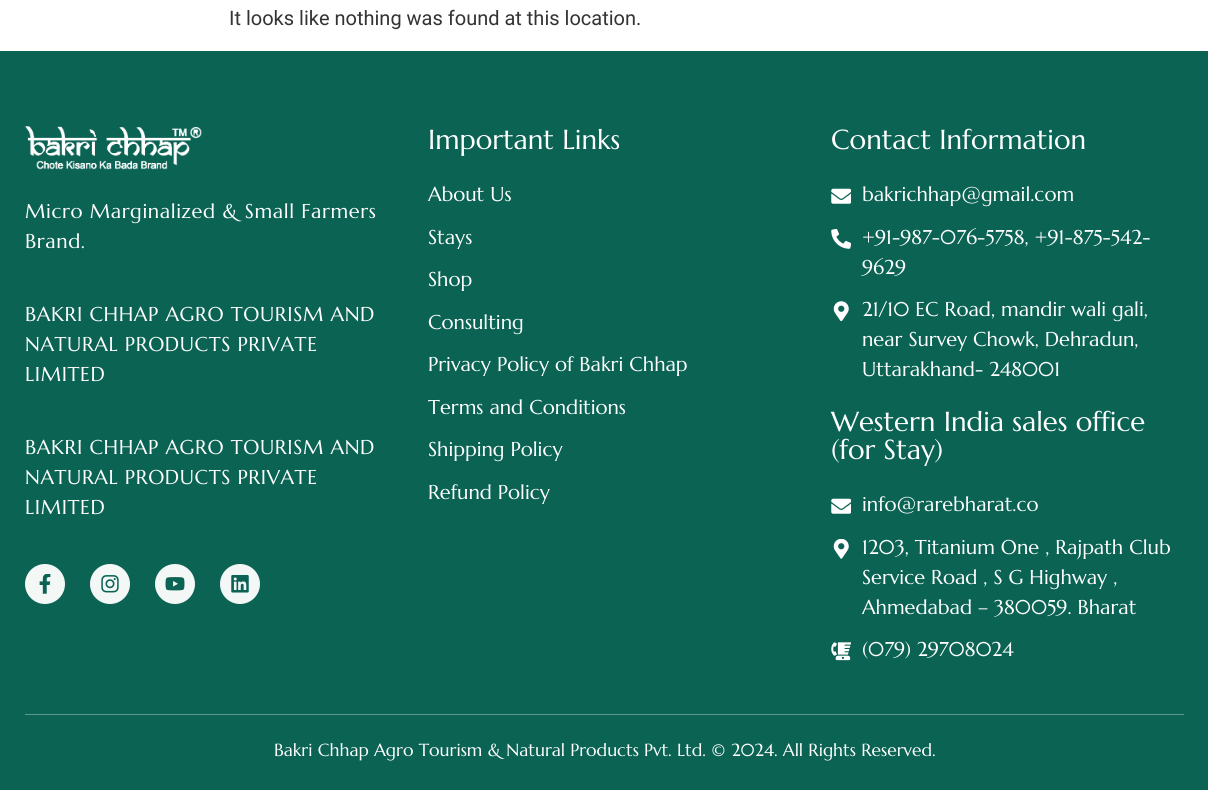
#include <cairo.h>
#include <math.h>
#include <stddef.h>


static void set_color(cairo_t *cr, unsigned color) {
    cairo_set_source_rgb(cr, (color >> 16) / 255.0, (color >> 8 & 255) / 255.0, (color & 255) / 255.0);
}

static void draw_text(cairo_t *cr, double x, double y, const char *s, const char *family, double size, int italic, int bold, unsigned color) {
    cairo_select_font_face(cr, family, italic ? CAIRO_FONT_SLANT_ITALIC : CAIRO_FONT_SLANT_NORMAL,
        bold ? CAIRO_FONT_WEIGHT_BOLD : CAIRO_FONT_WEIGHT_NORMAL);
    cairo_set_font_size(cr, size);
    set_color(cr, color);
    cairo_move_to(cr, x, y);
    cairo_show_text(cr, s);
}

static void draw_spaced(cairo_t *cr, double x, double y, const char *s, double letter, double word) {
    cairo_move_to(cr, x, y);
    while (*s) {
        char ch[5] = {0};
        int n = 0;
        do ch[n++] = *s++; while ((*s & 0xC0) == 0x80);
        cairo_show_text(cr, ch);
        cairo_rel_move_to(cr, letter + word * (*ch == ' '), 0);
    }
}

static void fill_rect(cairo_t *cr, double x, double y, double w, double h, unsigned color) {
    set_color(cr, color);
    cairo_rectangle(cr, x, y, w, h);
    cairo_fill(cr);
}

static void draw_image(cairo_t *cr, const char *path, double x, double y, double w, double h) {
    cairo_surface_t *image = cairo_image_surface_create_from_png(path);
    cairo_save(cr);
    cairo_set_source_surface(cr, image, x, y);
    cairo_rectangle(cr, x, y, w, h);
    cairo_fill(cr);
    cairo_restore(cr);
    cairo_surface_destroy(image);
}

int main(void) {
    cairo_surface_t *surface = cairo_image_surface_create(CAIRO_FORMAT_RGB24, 1208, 790);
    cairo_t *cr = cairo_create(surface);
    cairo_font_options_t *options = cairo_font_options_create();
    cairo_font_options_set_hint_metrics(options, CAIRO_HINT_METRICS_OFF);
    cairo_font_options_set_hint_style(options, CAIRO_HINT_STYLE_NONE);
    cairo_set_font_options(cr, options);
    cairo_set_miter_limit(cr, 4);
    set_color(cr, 0xFFFFFF);
    cairo_paint(cr);
    draw_text(cr, 229, 25, "It looks like nothing was found at this location.", "Roboto", 20, 0, 0, 0x333333);
    fill_rect(cr, 0, 51, 1208, 739, 0x0B6354);
    draw_image(cr, "assets/img1.png", 25, 126, 177, 44);
    cairo_select_font_face(cr, "Marcellus", CAIRO_FONT_SLANT_NORMAL, CAIRO_FONT_WEIGHT_NORMAL);
    set_color(cr, 0xFFFFFF);
    draw_spaced(cr, 25, 218, "Micro Marginalized & Small Farmers", 0.6, 0);
    draw_spaced(cr, 25, 248, "Brand.", 0.6, 0);
    draw_spaced(cr, 25, 321, "BAKRI CHHAP AGRO TOURISM AND", 0.6, 0);
    draw_spaced(cr, 25, 351, "NATURAL PRODUCTS PRIVATE", 0.6, 0);
    draw_spaced(cr, 25, 381, "LIMITED", 0.6, 0);
    draw_spaced(cr, 25, 454, "BAKRI CHHAP AGRO TOURISM AND", 0.6, 0);
    draw_spaced(cr, 25, 484, "NATURAL PRODUCTS PRIVATE", 0.6, 0);
    draw_spaced(cr, 25, 514, "LIMITED", 0.6, 0);
    set_color(cr, 0xF3F7F6);
    cairo_new_path(cr);
    cairo_arc(cr, 45, 584, 20, 0, 2 * M_PI);
    cairo_fill(cr);
    draw_image(cr, "assets/img2.png", 39, 574, 12, 20);
    cairo_arc(cr, 110, 584, 20, 0, 2 * M_PI);
    cairo_fill(cr);
    draw_image(cr, "assets/img3.png", 101, 575, 18, 18);
    cairo_arc(cr, 175, 584, 20, 0, 2 * M_PI);
    cairo_fill(cr);
    draw_image(cr, "assets/img4.png", 165, 577, 20, 14);
    cairo_arc(cr, 240, 584, 20, 0, 2 * M_PI);
    cairo_fill(cr);
    draw_image(cr, "assets/img5.png", 231, 575, 18, 18);
    draw_text(cr, 428, 149, "Important Links", "Marcellus", 27.5, 0, 0, 0xFFFFFF);
    draw_text(cr, 428, 201, "About Us", "Marcellus", 20, 0, 0, 0xFFFFFF);
    draw_text(cr, 428, 244, "Stays", "Marcellus", 20, 0, 0, 0xFFFFFF);
    draw_text(cr, 428, 286, "Shop", "Marcellus", 20, 0, 0, 0xFFFFFF);
    draw_text(cr, 428, 329, "Consulting", "Marcellus", 20, 0, 0, 0xFFFFFF);
    draw_text(cr, 428, 371, "Privacy Policy of Bakri Chhap", "Marcellus", 20, 0, 0, 0xFFFFFF);
    draw_text(cr, 428, 414, "Terms and Conditions", "Marcellus", 20, 0, 0, 0xFFFFFF);
    draw_text(cr, 428, 456, "Shipping Policy", "Marcellus", 20, 0, 0, 0xFFFFFF);
    draw_text(cr, 428, 499, "Refund Policy", "Marcellus", 20, 0, 0, 0xFFFFFF);
    draw_text(cr, 831, 149, "Contact Information", "Marcellus", 27.5, 0, 0, 0xFFFFFF);
    draw_image(cr, "assets/img6.png", 831, 188, 20, 16);
    draw_text(cr, 862, 201, "bakrichhap@gmail.com", "Marcellus", 20, 0, 0, 0xFFFFFF);
    draw_image(cr, "assets/img7.png", 831, 229, 20, 20);
    draw_text(cr, 862, 244, "+91-987-076-5758, +91-875-542-", "Marcellus", 20, 0, 0, 0xFFFFFF);
    draw_text(cr, 862, 274, "9629", "Marcellus", 20, 0, 0, 0xFFFFFF);
    draw_image(cr, "assets/img8.png", 833, 301, 16, 20);
    draw_text(cr, 862, 316, "21/10 EC Road, mandir wali gali,", "Marcellus", 20, 0, 0, 0xFFFFFF);
    draw_text(cr, 862, 346, "near Survey Chowk, Dehradun,", "Marcellus", 20, 0, 0, 0xFFFFFF);
    draw_text(cr, 862, 376, "Uttarakhand- 248001", "Marcellus", 20, 0, 0, 0xFFFFFF);
    draw_text(cr, 831, 431, "Western India sales office", "Marcellus", 27.5, 0, 0, 0xFFFFFF);
    draw_text(cr, 831, 459, "(for Stay)", "Marcellus", 27.5, 0, 0, 0xFFFFFF);
    draw_image(cr, "assets/img6.png", 831, 498, 20, 16);
    draw_text(cr, 862, 511, "info@rarebharat.co", "Marcellus", 20, 0, 0, 0xFFFFFF);
    draw_image(cr, "assets/img9.png", 833, 539, 16, 20);
    draw_text(cr, 862, 554, "1203, Titanium One , Rajpath Club", "Marcellus", 20, 0, 0, 0xFFFFFF);
    draw_text(cr, 862, 584, "Service Road , S G Highway ,", "Marcellus", 20, 0, 0, 0xFFFFFF);
    draw_text(cr, 862, 614, "Ahmedabad – 380059. Bharat", "Marcellus", 20, 0, 0, 0xFFFFFF);
    draw_image(cr, "assets/img10.png", 831, 642, 20, 19);
    draw_text(cr, 862, 656, "(079) 29708024", "Marcellus", 20, 0, 0, 0xFFFFFF);
    fill_rect(cr, 25, 714, 1159, 1, 0x5C978D);
    draw_text(cr, 274, 756, "Bakri Chhap Agro Tourism & Natural Products Pvt. Ltd. © 2024. All Rights Reserved.", "Marcellus", 17.5, 0, 0, 0xFFFFFF);
    cairo_surface_write_to_png(surface, "output.png");
    cairo_font_options_destroy(options);
    cairo_destroy(cr);
    cairo_surface_destroy(surface);
    return 0;
}
